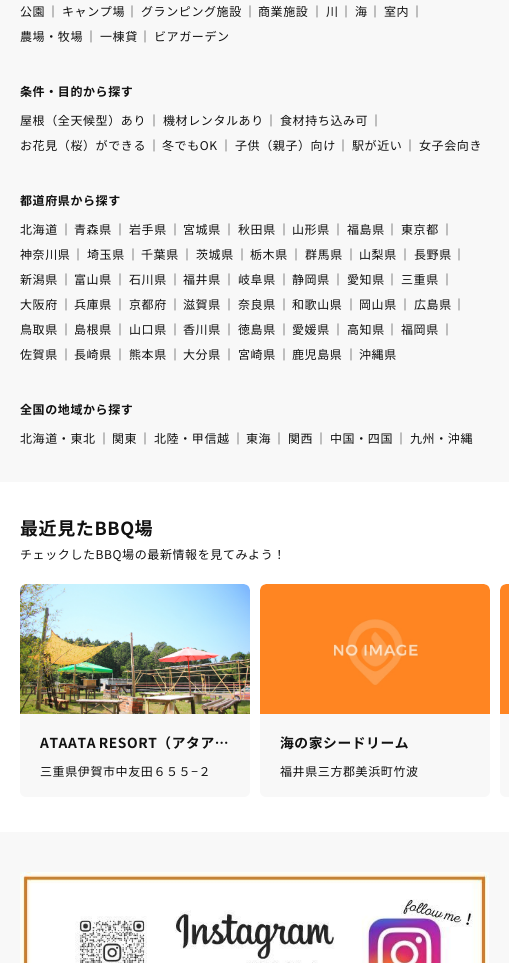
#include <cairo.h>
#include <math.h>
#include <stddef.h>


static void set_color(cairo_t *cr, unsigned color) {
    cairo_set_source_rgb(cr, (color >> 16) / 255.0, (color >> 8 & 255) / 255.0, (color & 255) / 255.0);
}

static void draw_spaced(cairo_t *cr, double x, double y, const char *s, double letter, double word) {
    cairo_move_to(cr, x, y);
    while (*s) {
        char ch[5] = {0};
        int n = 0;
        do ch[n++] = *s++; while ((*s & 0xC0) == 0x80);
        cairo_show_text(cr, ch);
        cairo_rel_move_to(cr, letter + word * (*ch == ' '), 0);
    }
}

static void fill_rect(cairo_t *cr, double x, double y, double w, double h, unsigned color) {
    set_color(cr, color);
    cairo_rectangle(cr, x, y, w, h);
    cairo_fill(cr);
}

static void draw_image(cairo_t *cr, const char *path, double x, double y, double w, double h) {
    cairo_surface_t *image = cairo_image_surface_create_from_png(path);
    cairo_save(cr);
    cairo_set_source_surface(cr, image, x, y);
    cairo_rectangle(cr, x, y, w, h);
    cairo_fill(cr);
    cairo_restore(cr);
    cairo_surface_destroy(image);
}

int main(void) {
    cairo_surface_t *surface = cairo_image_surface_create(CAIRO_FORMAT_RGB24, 509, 963);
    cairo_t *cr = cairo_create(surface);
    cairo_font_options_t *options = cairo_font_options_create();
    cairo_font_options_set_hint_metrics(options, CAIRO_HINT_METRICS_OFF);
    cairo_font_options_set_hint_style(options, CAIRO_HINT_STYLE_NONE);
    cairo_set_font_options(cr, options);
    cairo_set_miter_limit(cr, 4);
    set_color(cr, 0xFFFFFF);
    cairo_paint(cr);
    fill_rect(cr, 0, 0, 509, 482, 0xF8F8F8);
    cairo_select_font_face(cr, "Noto Sans JP", CAIRO_FONT_SLANT_NORMAL, CAIRO_FONT_WEIGHT_NORMAL);
    cairo_set_font_size(cr, 12);
    set_color(cr, 0x111111);
    draw_spaced(cr, 20, 16, "公園", 0.6, 0);
    draw_spaced(cr, 47, 16, "｜", 0.6, 0);
    draw_spaced(cr, 62, 16, "キャンプ場", 0.6, 0);
    draw_spaced(cr, 126, 16, "｜", 0.6, 0);
    draw_spaced(cr, 141, 16, "グランピング施設", 0.6, 0);
    draw_spaced(cr, 244, 16, "｜", 0.6, 0);
    draw_spaced(cr, 258, 16, "商業施設", 0.6, 0);
    draw_spaced(cr, 311, 16, "｜", 0.6, 0);
    draw_spaced(cr, 326, 16, "川", 0.6, 0);
    draw_spaced(cr, 340, 16, "｜", 0.6, 0);
    draw_spaced(cr, 355, 16, "海", 0.6, 0);
    draw_spaced(cr, 369, 16, "｜", 0.6, 0);
    draw_spaced(cr, 384, 16, "室内", 0.6, 0);
    draw_spaced(cr, 411, 16, "｜", 0.6, 0);
    draw_spaced(cr, 20, 41, "農場・牧場", 0.6, 0);
    draw_spaced(cr, 85, 41, "｜", 0.6, 0);
    draw_spaced(cr, 100, 41, "一棟貸", 0.6, 0);
    draw_spaced(cr, 139, 41, "｜", 0.6, 0);
    draw_spaced(cr, 154, 41, "ビアガーデン", 0.6, 0);
    cairo_select_font_face(cr, "Noto Sans JP", CAIRO_FONT_SLANT_NORMAL, CAIRO_FONT_WEIGHT_BOLD);
    draw_spaced(cr, 20, 96, "条件・目的から探す", 0.6, 0);
    cairo_select_font_face(cr, "Noto Sans JP", CAIRO_FONT_SLANT_NORMAL, CAIRO_FONT_WEIGHT_NORMAL);
    draw_spaced(cr, 20, 125, "屋根（全天候型）あり", 0.6, 0);
    draw_spaced(cr, 148, 125, "｜", 0.6, 0);
    draw_spaced(cr, 163, 125, "機材レンタルあり", 0.6, 0);
    draw_spaced(cr, 265, 125, "｜", 0.6, 0);
    draw_spaced(cr, 280, 125, "食材持ち込み可", 0.6, 0);
    draw_spaced(cr, 370, 125, "｜", 0.6, 0);
    draw_spaced(cr, 20, 150, "お花見（桜）ができる", 0.6, 0);
    draw_spaced(cr, 148, 150, "｜", 0.6, 0);
    draw_spaced(cr, 162, 150, "冬でもOK", 0.6, 0);
    draw_spaced(cr, 220, 150, "｜", 0.6, 0);
    draw_spaced(cr, 235, 150, "子供（親子）向け", 0.6, 0);
    draw_spaced(cr, 337, 150, "｜", 0.6, 0);
    draw_spaced(cr, 352, 150, "駅が近い", 0.6, 0);
    draw_spaced(cr, 404, 150, "｜", 0.6, 0);
    draw_spaced(cr, 419, 150, "女子会向き", 0.6, 0);
    cairo_select_font_face(cr, "Noto Sans JP", CAIRO_FONT_SLANT_NORMAL, CAIRO_FONT_WEIGHT_BOLD);
    draw_spaced(cr, 20, 205, "都道府県から探す", 0.6, 0);
    cairo_select_font_face(cr, "Noto Sans JP", CAIRO_FONT_SLANT_NORMAL, CAIRO_FONT_WEIGHT_NORMAL);
    draw_spaced(cr, 20, 234, "北海道", 0.6, 0);
    draw_spaced(cr, 60, 234, "｜", 0.6, 0);
    draw_spaced(cr, 74, 234, "青森県", 0.6, 0);
    draw_spaced(cr, 114, 234, "｜", 0.6, 0);
    draw_spaced(cr, 129, 234, "岩手県", 0.6, 0);
    draw_spaced(cr, 169, 234, "｜", 0.6, 0);
    draw_spaced(cr, 183, 234, "宮城県", 0.6, 0);
    draw_spaced(cr, 223, 234, "｜", 0.6, 0);
    draw_spaced(cr, 238, 234, "秋田県", 0.6, 0);
    draw_spaced(cr, 278, 234, "｜", 0.6, 0);
    draw_spaced(cr, 292, 234, "山形県", 0.6, 0);
    draw_spaced(cr, 332, 234, "｜", 0.6, 0);
    draw_spaced(cr, 347, 234, "福島県", 0.6, 0);
    draw_spaced(cr, 386, 234, "｜", 0.6, 0);
    draw_spaced(cr, 401, 234, "東京都", 0.6, 0);
    draw_spaced(cr, 441, 234, "｜", 0.6, 0);
    draw_spaced(cr, 20, 259, "神奈川県", 0.6, 0);
    draw_spaced(cr, 72, 259, "｜", 0.6, 0);
    draw_spaced(cr, 87, 259, "埼玉県", 0.6, 0);
    draw_spaced(cr, 127, 259, "｜", 0.6, 0);
    draw_spaced(cr, 141, 259, "千葉県", 0.6, 0);
    draw_spaced(cr, 181, 259, "｜", 0.6, 0);
    draw_spaced(cr, 196, 259, "茨城県", 0.6, 0);
    draw_spaced(cr, 236, 259, "｜", 0.6, 0);
    draw_spaced(cr, 250, 259, "栃木県", 0.6, 0);
    draw_spaced(cr, 290, 259, "｜", 0.6, 0);
    draw_spaced(cr, 305, 259, "群馬県", 0.6, 0);
    draw_spaced(cr, 345, 259, "｜", 0.6, 0);
    draw_spaced(cr, 359, 259, "山梨県", 0.6, 0);
    draw_spaced(cr, 399, 259, "｜", 0.6, 0);
    draw_spaced(cr, 414, 259, "長野県", 0.6, 0);
    draw_spaced(cr, 453, 259, "｜", 0.6, 0);
    draw_spaced(cr, 20, 284, "新潟県", 0.6, 0);
    draw_spaced(cr, 60, 284, "｜", 0.6, 0);
    draw_spaced(cr, 74, 284, "富山県", 0.6, 0);
    draw_spaced(cr, 114, 284, "｜", 0.6, 0);
    draw_spaced(cr, 129, 284, "石川県", 0.6, 0);
    draw_spaced(cr, 169, 284, "｜", 0.6, 0);
    draw_spaced(cr, 183, 284, "福井県", 0.6, 0);
    draw_spaced(cr, 223, 284, "｜", 0.6, 0);
    draw_spaced(cr, 238, 284, "岐阜県", 0.6, 0);
    draw_spaced(cr, 278, 284, "｜", 0.6, 0);
    draw_spaced(cr, 292, 284, "静岡県", 0.6, 0);
    draw_spaced(cr, 332, 284, "｜", 0.6, 0);
    draw_spaced(cr, 347, 284, "愛知県", 0.6, 0);
    draw_spaced(cr, 386, 284, "｜", 0.6, 0);
    draw_spaced(cr, 401, 284, "三重県", 0.6, 0);
    draw_spaced(cr, 441, 284, "｜", 0.6, 0);
    draw_spaced(cr, 20, 309, "大阪府", 0.6, 0);
    draw_spaced(cr, 60, 309, "｜", 0.6, 0);
    draw_spaced(cr, 74, 309, "兵庫県", 0.6, 0);
    draw_spaced(cr, 114, 309, "｜", 0.6, 0);
    draw_spaced(cr, 129, 309, "京都府", 0.6, 0);
    draw_spaced(cr, 169, 309, "｜", 0.6, 0);
    draw_spaced(cr, 183, 309, "滋賀県", 0.6, 0);
    draw_spaced(cr, 223, 309, "｜", 0.6, 0);
    draw_spaced(cr, 238, 309, "奈良県", 0.6, 0);
    draw_spaced(cr, 278, 309, "｜", 0.6, 0);
    draw_spaced(cr, 292, 309, "和歌山県", 0.6, 0);
    draw_spaced(cr, 345, 309, "｜", 0.6, 0);
    draw_spaced(cr, 359, 309, "岡山県", 0.6, 0);
    draw_spaced(cr, 399, 309, "｜", 0.6, 0);
    draw_spaced(cr, 414, 309, "広島県", 0.6, 0);
    draw_spaced(cr, 453, 309, "｜", 0.6, 0);
    draw_spaced(cr, 20, 334, "鳥取県", 0.6, 0);
    draw_spaced(cr, 60, 334, "｜", 0.6, 0);
    draw_spaced(cr, 74, 334, "島根県", 0.6, 0);
    draw_spaced(cr, 114, 334, "｜", 0.6, 0);
    draw_spaced(cr, 129, 334, "山口県", 0.6, 0);
    draw_spaced(cr, 169, 334, "｜", 0.6, 0);
    draw_spaced(cr, 183, 334, "香川県", 0.6, 0);
    draw_spaced(cr, 223, 334, "｜", 0.6, 0);
    draw_spaced(cr, 238, 334, "徳島県", 0.6, 0);
    draw_spaced(cr, 278, 334, "｜", 0.6, 0);
    draw_spaced(cr, 292, 334, "愛媛県", 0.6, 0);
    draw_spaced(cr, 332, 334, "｜", 0.6, 0);
    draw_spaced(cr, 347, 334, "高知県", 0.6, 0);
    draw_spaced(cr, 386, 334, "｜", 0.6, 0);
    draw_spaced(cr, 401, 334, "福岡県", 0.6, 0);
    draw_spaced(cr, 441, 334, "｜", 0.6, 0);
    draw_spaced(cr, 20, 359, "佐賀県", 0.6, 0);
    draw_spaced(cr, 60, 359, "｜", 0.6, 0);
    draw_spaced(cr, 74, 359, "長崎県", 0.6, 0);
    draw_spaced(cr, 114, 359, "｜", 0.6, 0);
    draw_spaced(cr, 129, 359, "熊本県", 0.6, 0);
    draw_spaced(cr, 169, 359, "｜", 0.6, 0);
    draw_spaced(cr, 183, 359, "大分県", 0.6, 0);
    draw_spaced(cr, 223, 359, "｜", 0.6, 0);
    draw_spaced(cr, 238, 359, "宮崎県", 0.6, 0);
    draw_spaced(cr, 278, 359, "｜", 0.6, 0);
    draw_spaced(cr, 292, 359, "鹿児島県", 0.6, 0);
    draw_spaced(cr, 345, 359, "｜", 0.6, 0);
    draw_spaced(cr, 359, 359, "沖縄県", 0.6, 0);
    cairo_select_font_face(cr, "Noto Sans JP", CAIRO_FONT_SLANT_NORMAL, CAIRO_FONT_WEIGHT_BOLD);
    draw_spaced(cr, 20, 414, "全国の地域から探す", 0.6, 0);
    cairo_select_font_face(cr, "Noto Sans JP", CAIRO_FONT_SLANT_NORMAL, CAIRO_FONT_WEIGHT_NORMAL);
    draw_spaced(cr, 20, 443, "北海道・東北", 0.6, 0);
    draw_spaced(cr, 98, 443, "｜", 0.6, 0);
    draw_spaced(cr, 112, 443, "関東", 0.6, 0);
    draw_spaced(cr, 139, 443, "｜", 0.6, 0);
    draw_spaced(cr, 154, 443, "北陸・甲信越", 0.6, 0);
    draw_spaced(cr, 232, 443, "｜", 0.6, 0);
    draw_spaced(cr, 246, 443, "東海", 0.6, 0);
    draw_spaced(cr, 273, 443, "｜", 0.6, 0);
    draw_spaced(cr, 288, 443, "関西", 0.6, 0);
    draw_spaced(cr, 315, 443, "｜", 0.6, 0);
    draw_spaced(cr, 330, 443, "中国・四国", 0.6, 0);
    draw_spaced(cr, 395, 443, "｜", 0.6, 0);
    draw_spaced(cr, 410, 443, "九州・沖縄", 0.6, 0);
    cairo_select_font_face(cr, "Noto Sans JP", CAIRO_FONT_SLANT_NORMAL, CAIRO_FONT_WEIGHT_BOLD);
    cairo_set_font_size(cr, 18);
    draw_spaced(cr, 20, 535, "最近見たBBQ場", 0.6, 0);
    cairo_select_font_face(cr, "Noto Sans JP", CAIRO_FONT_SLANT_NORMAL, CAIRO_FONT_WEIGHT_NORMAL);
    cairo_set_font_size(cr, 12);
    draw_spaced(cr, 20, 559, "チェックしたBBQ場の最新情報を見てみよう！", 0.6, 0);
    draw_image(cr, "assets/img1.png", 20, 584, 230, 130);
    set_color(cr, 0xF8F8F8);
    cairo_new_path(cr);
    cairo_move_to(cr, 20, 714);
    cairo_line_to(cr, 250, 714);
    cairo_line_to(cr, 250, 791);
    cairo_curve_to(cr, 250, 794.5, 247.5, 797, 244, 797);
    cairo_line_to(cr, 26, 797);
    cairo_curve_to(cr, 22.5, 797, 20, 794.5, 20, 791);
    cairo_close_path(cr);
    cairo_fill(cr);
    cairo_select_font_face(cr, "Noto Sans JP", CAIRO_FONT_SLANT_NORMAL, CAIRO_FONT_WEIGHT_BOLD);
    cairo_set_font_size(cr, 13.75);
    set_color(cr, 0x111111);
    draw_spaced(cr, 40, 748, "ATAATA RESORT（アタア…", 0.6, -1);
    cairo_select_font_face(cr, "Noto Sans JP", CAIRO_FONT_SLANT_NORMAL, CAIRO_FONT_WEIGHT_NORMAL);
    cairo_set_font_size(cr, 12);
    draw_spaced(cr, 40, 776, "三重県伊賀市中友田６５５−２", 0.6, 0);
    draw_image(cr, "assets/img2.png", 260, 584, 230, 130);
    set_color(cr, 0xF8F8F8);
    cairo_new_path(cr);
    cairo_move_to(cr, 260, 714);
    cairo_line_to(cr, 490, 714);
    cairo_line_to(cr, 490, 791);
    cairo_curve_to(cr, 490, 794.5, 487.5, 797, 484, 797);
    cairo_line_to(cr, 266, 797);
    cairo_curve_to(cr, 262.5, 797, 260, 794.5, 260, 791);
    cairo_close_path(cr);
    cairo_fill(cr);
    cairo_select_font_face(cr, "Noto Sans JP", CAIRO_FONT_SLANT_NORMAL, CAIRO_FONT_WEIGHT_BOLD);
    cairo_set_font_size(cr, 13.75);
    set_color(cr, 0x111111);
    draw_spaced(cr, 280, 748, "海の家シードリーム", 0.6, 0);
    cairo_select_font_face(cr, "Noto Sans JP", CAIRO_FONT_SLANT_NORMAL, CAIRO_FONT_WEIGHT_NORMAL);
    cairo_set_font_size(cr, 12);
    draw_spaced(cr, 280, 776, "福井県三方郡美浜町竹波", 0.6, 0);
    draw_image(cr, "assets/img3.png", 500, 584, 9, 130);
    set_color(cr, 0xF8F8F8);
    cairo_new_path(cr);
    cairo_move_to(cr, 500, 714);
    cairo_line_to(cr, 509, 714);
    cairo_line_to(cr, 509, 797);
    cairo_line_to(cr, 506, 797);
    cairo_curve_to(cr, 502.5, 797, 500, 794.5, 500, 791);
    cairo_close_path(cr);
    cairo_fill(cr);
    fill_rect(cr, 0, 832, 509, 131, 0xF8F8F8);
    draw_image(cr, "assets/img4.png", 20, 872, 469, 91);
    cairo_surface_write_to_png(surface, "output.png");
    cairo_font_options_destroy(options);
    cairo_destroy(cr);
    cairo_surface_destroy(surface);
    return 0;
}
